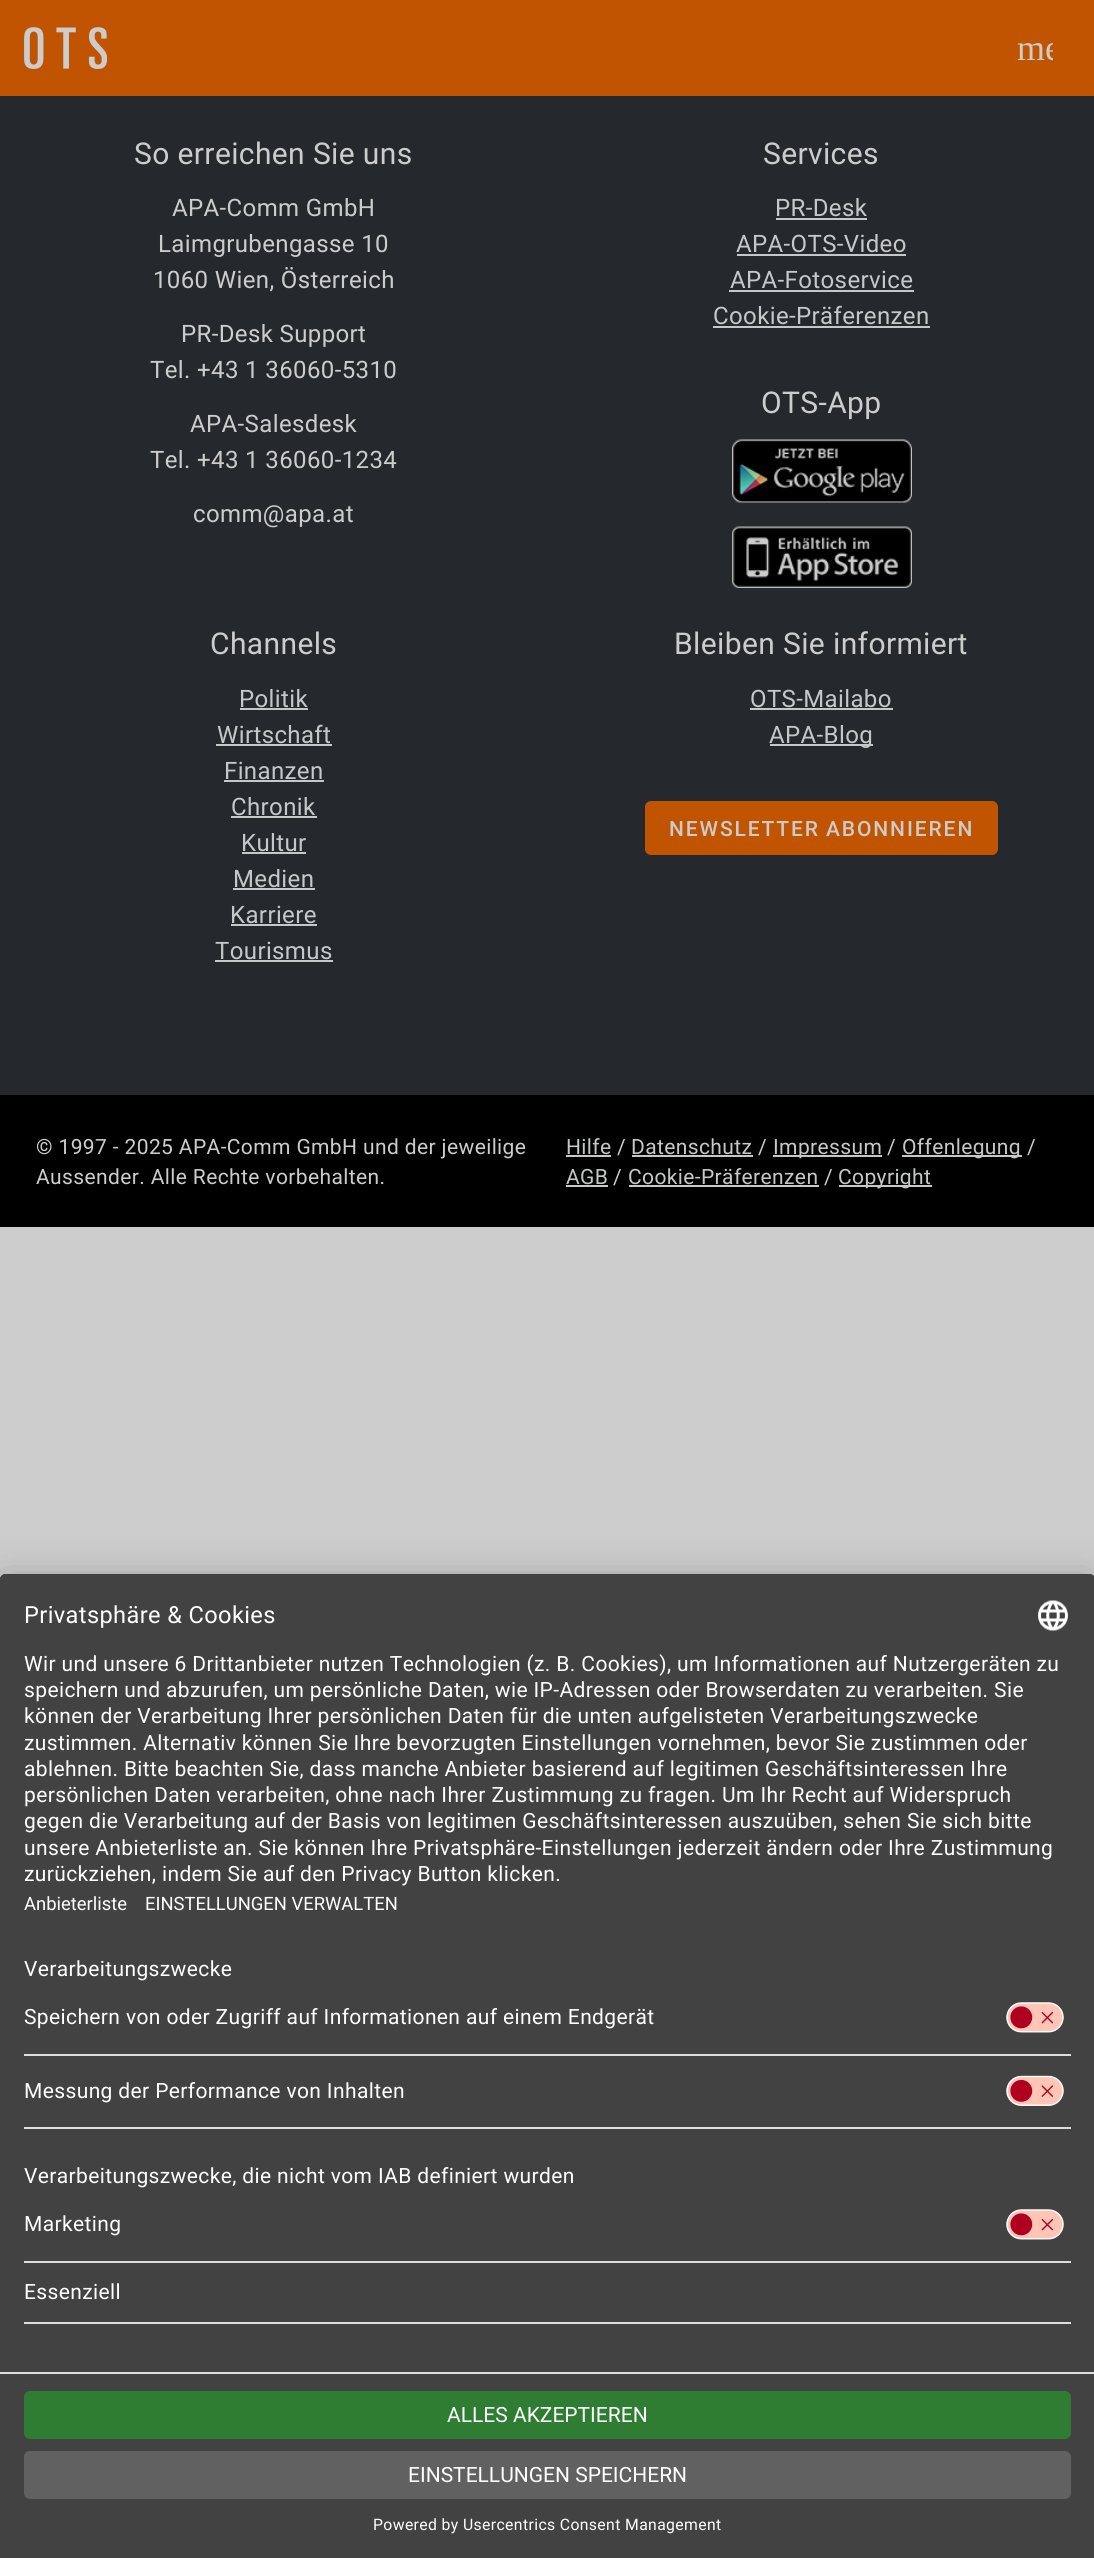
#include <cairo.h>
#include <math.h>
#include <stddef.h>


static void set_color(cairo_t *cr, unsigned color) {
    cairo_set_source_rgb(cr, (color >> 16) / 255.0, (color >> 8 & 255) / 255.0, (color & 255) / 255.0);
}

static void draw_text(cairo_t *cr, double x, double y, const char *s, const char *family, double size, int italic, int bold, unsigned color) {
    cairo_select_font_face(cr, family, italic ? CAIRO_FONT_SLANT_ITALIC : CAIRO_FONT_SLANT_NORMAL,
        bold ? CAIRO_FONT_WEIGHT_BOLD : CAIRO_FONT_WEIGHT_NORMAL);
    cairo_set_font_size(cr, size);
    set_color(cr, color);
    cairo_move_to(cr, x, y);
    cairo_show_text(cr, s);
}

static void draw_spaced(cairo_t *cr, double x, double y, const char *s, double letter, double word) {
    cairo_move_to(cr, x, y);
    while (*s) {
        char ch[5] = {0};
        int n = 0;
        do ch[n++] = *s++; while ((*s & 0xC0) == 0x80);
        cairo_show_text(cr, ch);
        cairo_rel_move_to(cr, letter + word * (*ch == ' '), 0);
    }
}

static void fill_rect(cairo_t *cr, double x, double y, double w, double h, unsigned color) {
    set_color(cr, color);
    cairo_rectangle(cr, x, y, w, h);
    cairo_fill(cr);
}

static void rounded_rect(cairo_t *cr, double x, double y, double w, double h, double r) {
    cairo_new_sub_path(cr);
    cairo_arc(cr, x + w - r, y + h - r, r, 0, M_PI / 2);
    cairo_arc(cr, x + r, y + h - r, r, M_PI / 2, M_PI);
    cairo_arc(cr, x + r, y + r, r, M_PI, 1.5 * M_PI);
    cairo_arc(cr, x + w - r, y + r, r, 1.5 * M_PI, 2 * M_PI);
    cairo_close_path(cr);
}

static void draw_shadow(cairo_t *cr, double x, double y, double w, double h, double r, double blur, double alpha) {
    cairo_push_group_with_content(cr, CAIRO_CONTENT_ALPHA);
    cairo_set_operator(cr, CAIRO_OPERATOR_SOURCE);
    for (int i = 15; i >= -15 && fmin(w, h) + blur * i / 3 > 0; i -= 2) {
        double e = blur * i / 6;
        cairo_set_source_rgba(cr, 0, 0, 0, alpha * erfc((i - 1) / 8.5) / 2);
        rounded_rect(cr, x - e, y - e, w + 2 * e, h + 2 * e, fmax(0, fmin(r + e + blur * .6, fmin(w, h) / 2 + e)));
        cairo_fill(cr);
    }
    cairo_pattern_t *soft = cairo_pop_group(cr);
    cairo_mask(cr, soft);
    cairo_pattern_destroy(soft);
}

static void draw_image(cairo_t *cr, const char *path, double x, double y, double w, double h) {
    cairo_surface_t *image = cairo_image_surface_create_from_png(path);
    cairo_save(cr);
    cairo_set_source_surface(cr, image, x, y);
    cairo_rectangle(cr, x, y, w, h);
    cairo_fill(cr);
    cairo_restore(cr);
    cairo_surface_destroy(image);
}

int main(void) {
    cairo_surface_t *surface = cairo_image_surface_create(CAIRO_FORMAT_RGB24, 1094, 2558);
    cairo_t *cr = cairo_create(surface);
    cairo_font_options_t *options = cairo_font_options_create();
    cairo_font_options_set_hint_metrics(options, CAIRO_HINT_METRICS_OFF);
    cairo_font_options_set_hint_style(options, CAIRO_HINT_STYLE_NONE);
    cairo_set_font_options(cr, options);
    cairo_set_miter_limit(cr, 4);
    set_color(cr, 0xCCCCCC);
    cairo_paint(cr);
    fill_rect(cr, 0, 0, 1094, 96, 0xC05400);
    draw_image(cr, "assets/img1.png", 24, 27, 84, 42);
    cairo_save(cr);
    cairo_rectangle(cr, 1017, 30, 36, 36);
    cairo_clip(cr);
    draw_text(cr, 1017, 60, "me", "Liberation Serif", 36, 0, 0, 0xCCCCCC);
    cairo_restore(cr);
    fill_rect(cr, 0, 96, 1094, 999, 0x25292E);
    cairo_select_font_face(cr, "Roboto", CAIRO_FONT_SLANT_NORMAL, CAIRO_FONT_WEIGHT_NORMAL);
    cairo_set_font_size(cr, 30);
    set_color(cr, 0xCCCCCC);
    draw_spaced(cr, 134, 164, "So erreichen Sie uns", 0.38, 0);
    cairo_set_font_size(cr, 24);
    draw_spaced(cr, 172, 216, "APA-Comm GmbH", 0.38, 0);
    draw_spaced(cr, 158, 252, "Laimgrubengasse 10", 0.38, 0);
    draw_spaced(cr, 153, 288, "1060 Wien, Österreich", 0.38, 0);
    draw_spaced(cr, 181, 342, "PR-Desk Support", 0.38, 0);
    draw_spaced(cr, 150, 378, "Tel. +43 1 36060-5310", 0.38, 0);
    draw_spaced(cr, 190, 432, "APA-Salesdesk", 0.38, 0);
    draw_spaced(cr, 150, 468, "Tel. +43 1 36060-1234", 0.38, 0);
    draw_spaced(cr, 193, 522, "comm@apa.at", 0.38, 0);
    cairo_set_font_size(cr, 30);
    draw_spaced(cr, 763, 164, "Services", 0.38, 0);
    cairo_set_font_size(cr, 24);
    set_color(cr, 0xC6C7C8);
    draw_spaced(cr, 775, 216, "PR-Desk", 0.38, 0);
    fill_rect(cr, 776, 218, 91, 2, 0xC6C7C8);
    draw_spaced(cr, 736, 252, "APA-OTS-Video", 0.38, 0);
    fill_rect(cr, 737, 254, 169, 2, 0xC6C7C8);
    draw_spaced(cr, 730, 288, "APA-Fotoservice", 0.38, 0);
    fill_rect(cr, 729, 290, 185, 2, 0xC6C7C8);
    draw_spaced(cr, 713, 324, "Cookie-Präferenzen", 0.38, 0);
    fill_rect(cr, 713, 326, 217, 2, 0xC6C7C8);
    cairo_set_font_size(cr, 30);
    set_color(cr, 0xCCCCCC);
    draw_spaced(cr, 761, 413, "OTS-App", 0.38, 0);
    draw_image(cr, "assets/img2.png", 732, 439, 180, 64);
    draw_image(cr, "assets/img3.png", 732, 526, 180, 62);
    draw_spaced(cr, 210, 654, "Channels", 0.38, 0);
    cairo_set_font_size(cr, 24);
    set_color(cr, 0xC6C7C8);
    draw_spaced(cr, 239, 707, "Politik", 0.38, 0);
    fill_rect(cr, 240, 708, 68, 2, 0xC6C7C8);
    draw_spaced(cr, 217, 743, "Wirtschaft", 0.38, 0);
    fill_rect(cr, 216, 744, 116, 2, 0xC6C7C8);
    draw_spaced(cr, 224, 779, "Finanzen", 0.38, 0);
    fill_rect(cr, 224, 780, 100, 2, 0xC6C7C8);
    draw_spaced(cr, 231, 815, "Chronik", 0.38, 0);
    fill_rect(cr, 231, 816, 86, 2, 0xC6C7C8);
    draw_spaced(cr, 241, 851, "Kultur", 0.38, 0);
    fill_rect(cr, 242, 852, 64, 2, 0xC6C7C8);
    draw_spaced(cr, 233, 887, "Medien", 0.38, 0);
    fill_rect(cr, 233, 888, 82, 2, 0xC6C7C8);
    draw_spaced(cr, 230, 923, "Karriere", 0.38, 0);
    fill_rect(cr, 231, 924, 86, 2, 0xC6C7C8);
    draw_spaced(cr, 215, 959, "Tourismus", 0.38, 0);
    fill_rect(cr, 215, 960, 118, 2, 0xC6C7C8);
    cairo_set_font_size(cr, 30);
    set_color(cr, 0xCCCCCC);
    draw_spaced(cr, 674, 654, "Bleiben Sie informiert", 0.38, 0);
    cairo_set_font_size(cr, 24);
    set_color(cr, 0xC6C7C8);
    draw_spaced(cr, 750, 707, "OTS-Mailabo", 0.38, 0);
    fill_rect(cr, 750, 708, 143, 2, 0xC6C7C8);
    fill_rect(cr, 770, 744, 103, 2, 0xC6C7C8);
    draw_spaced(cr, 769, 743, "APA-Blog", 0.38, 0);
    set_color(cr, 0xC05400);
    rounded_rect(cr, 645, 801, 353, 54, 6);
    cairo_fill(cr);
    cairo_select_font_face(cr, "Roboto Medium", CAIRO_FONT_SLANT_NORMAL, CAIRO_FONT_WEIGHT_NORMAL);
    cairo_set_font_size(cr, 21);
    set_color(cr, 0xCCCCCC);
    draw_spaced(cr, 669, 836, "NEWSLETTER ABONNIEREN", 1.9, -1);
    fill_rect(cr, 0, 1095, 1094, 132, 0x000000);
    cairo_select_font_face(cr, "Roboto", CAIRO_FONT_SLANT_NORMAL, CAIRO_FONT_WEIGHT_NORMAL);
    set_color(cr, 0xCCCCCC);
    draw_spaced(cr, 36, 1154, "© 1997 - 2025 APA-Comm GmbH und der jeweilige", 0.38, 0);
    draw_spaced(cr, 36, 1184, "Aussender. Alle Rechte vorbehalten.", 0.38, 0);
    set_color(cr, 0xC6C7C8);
    draw_spaced(cr, 566, 1154, "Hilfe", 0.38, 0);
    fill_rect(cr, 566, 1155, 45, 2, 0xC6C7C8);
    set_color(cr, 0xCCCCCC);
    draw_spaced(cr, 617, 1154, "/", 0.38, 0);
    set_color(cr, 0xC6C7C8);
    draw_spaced(cr, 631, 1154, "Datenschutz", 0.38, 0);
    fill_rect(cr, 632, 1155, 121, 2, 0xC6C7C8);
    set_color(cr, 0xCCCCCC);
    draw_spaced(cr, 758, 1154, "/", 0.38, 0);
    fill_rect(cr, 773, 1155, 109, 2, 0xC6C7C8);
    draw_spaced(cr, 773, 1154, "Impressum", 0.38, 0);
    set_color(cr, 0xCCCCCC);
    draw_spaced(cr, 887, 1154, "/", 0.38, 0);
    fill_rect(cr, 902, 1155, 120, 2, 0xC6C7C8);
    draw_spaced(cr, 902, 1154, "Offenlegung", 0.38, 0);
    set_color(cr, 0xCCCCCC);
    draw_spaced(cr, 1027, 1154, "/", 0.38, 0);
    set_color(cr, 0xC6C7C8);
    draw_spaced(cr, 566, 1184, "AGB", 0.38, 0);
    fill_rect(cr, 566, 1185, 42, 2, 0xC6C7C8);
    set_color(cr, 0xCCCCCC);
    draw_spaced(cr, 613, 1184, "/", 0.38, 0);
    set_color(cr, 0xC6C7C8);
    draw_spaced(cr, 628, 1184, "Cookie-Präferenzen", 0.38, 0);
    fill_rect(cr, 629, 1185, 190, 2, 0xC6C7C8);
    set_color(cr, 0xCCCCCC);
    draw_spaced(cr, 824, 1184, "/", 0.38, 0);
    fill_rect(cr, 839, 1185, 93, 2, 0xC6C7C8);
    draw_spaced(cr, 838, 1184, "Copyright", 0.38, 0);
    set_color(cr, 0x000000);
    draw_shadow(cr, 0, 1604, 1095, 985, 6, 21, 0.3);
    draw_shadow(cr, 0, 1581, 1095, 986, 6, 19.5, 0.22);
    set_color(cr, 0x424242);
    cairo_new_path(cr);
    cairo_move_to(cr, 6, 1574);
    cairo_line_to(cr, 1089, 1574);
    cairo_curve_to(cr, 1092.5, 1574, 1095, 1576.5, 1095, 1580);
    cairo_line_to(cr, 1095, 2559);
    cairo_line_to(cr, 0, 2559);
    cairo_line_to(cr, 0, 1580);
    cairo_curve_to(cr, 0, 1576.5, 2.5, 1574, 6, 1574);
    cairo_close_path(cr);
    cairo_fill(cr);
    cairo_new_path(cr);
    cairo_move_to(cr, 6, 1574);
    cairo_line_to(cr, 1089, 1574);
    cairo_curve_to(cr, 1092.5, 1574, 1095, 1576.5, 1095, 1580);
    cairo_line_to(cr, 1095, 2372);
    cairo_line_to(cr, 0, 2372);
    cairo_line_to(cr, 0, 1580);
    cairo_curve_to(cr, 0, 1576.5, 2.5, 1574, 6, 1574);
    cairo_close_path(cr);
    cairo_fill(cr);
    cairo_new_path(cr);
    cairo_move_to(cr, 6, 1574);
    cairo_line_to(cr, 1089, 1574);
    cairo_curve_to(cr, 1092.5, 1574, 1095, 1576.5, 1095, 1580);
    cairo_line_to(cr, 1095, 1938);
    cairo_line_to(cr, 0, 1938);
    cairo_line_to(cr, 0, 1580);
    cairo_curve_to(cr, 0, 1576.5, 2.5, 1574, 6, 1574);
    cairo_close_path(cr);
    cairo_fill(cr);
    cairo_set_font_size(cr, 23.6);
    set_color(cr, 0xFFFFFF);
    draw_spaced(cr, 24, 1623, "Privatsphäre & Cookies", 0.38, 0);
    draw_image(cr, "assets/img4.png", 1038, 1600, 30, 31);
    cairo_set_font_size(cr, 21);
    draw_spaced(cr, 24, 1671, "Wir und unsere 6 Drittanbieter nutzen Technologien (z. B. Cookies), um Informationen auf Nutzergeräten zu", 0.38, 0);
    draw_spaced(cr, 24, 1697, "speichern und abzurufen, um persönliche Daten, wie IP-Adressen oder Browserdaten zu verarbeiten. Sie", 0.38, 0);
    draw_spaced(cr, 24, 1723, "können der Verarbeitung Ihrer persönlichen Daten für die unten aufgelisteten Verarbeitungszwecke", 0.38, 0);
    draw_spaced(cr, 24, 1750, "zustimmen. Alternativ können Sie Ihre bevorzugten Einstellungen vornehmen, bevor Sie zustimmen oder", 0.38, 0);
    draw_spaced(cr, 24, 1776, "ablehnen. Bitte beachten Sie, dass manche Anbieter basierend auf legitimen Geschäftsinteressen Ihre", 0.38, 0);
    draw_spaced(cr, 24, 1802, "persönlichen Daten verarbeiten, ohne nach Ihrer Zustimmung zu fragen. Um Ihr Recht auf Widerspruch", 0.38, 0);
    draw_spaced(cr, 24, 1828, "gegen die Verarbeitung auf der Basis von legitimen Geschäftsinteressen auszuüben, sehen Sie sich bitte", 0.38, 0);
    draw_spaced(cr, 24, 1855, "unsere Anbieterliste an. Sie können Ihre Privatsphäre-Einstellungen jederzeit ändern oder Ihre Zustimmung", 0.38, 0);
    draw_spaced(cr, 24, 1881, "zurückziehen, indem Sie auf den Privacy Button klicken.", 0.38, 0);
    draw_text(cr, 24, 1910, "Anbieterliste", "Roboto", 18.4, 0, 0, 0xFFFFFF);
    draw_text(cr, 145, 1910, "EINSTELLUNGEN VERWALTEN", "Roboto", 18.4, 0, 0, 0xFFFFFF);
    cairo_set_font_size(cr, 21);
    draw_spaced(cr, 24, 1976, "Verarbeitungszwecke", 0.38, 0);
    fill_rect(cr, 24, 2054, 1047, 2, 0xDDDDDD);
    set_color(cr, 0xFFFFFF);
    draw_spaced(cr, 24, 2024, "Speichern von oder Zugriff auf Informationen auf einem Endgerät", 0.38, 0);
    draw_image(cr, "assets/img5.png", 1006, 2002, 58, 31);
    fill_rect(cr, 24, 2127, 1047, 2, 0xDDDDDD);
    set_color(cr, 0xFFFFFF);
    draw_spaced(cr, 24, 2098, "Messung der Performance von Inhalten", 0.38, 0);
    draw_image(cr, "assets/img6.png", 1006, 2075, 58, 31);
    draw_spaced(cr, 24, 2183, "Verarbeitungszwecke, die nicht vom IAB definiert wurden", 0.38, 0);
    fill_rect(cr, 24, 2261, 1047, 2, 0xDDDDDD);
    set_color(cr, 0xFFFFFF);
    draw_spaced(cr, 24, 2231, "Marketing", 0.38, 0);
    draw_image(cr, "assets/img5.png", 1006, 2209, 58, 31);
    fill_rect(cr, 24, 2322, 1047, 2, 0xDDDDDD);
    set_color(cr, 0xFFFFFF);
    draw_spaced(cr, 24, 2299, "Essenziell", 0.38, 0);
    fill_rect(cr, 0, 2372, 1094, 2, 0xDDDDDD);
    set_color(cr, 0x2E7D32);
    rounded_rect(cr, 24, 2391, 1047, 48, 6);
    cairo_fill(cr);
    draw_text(cr, 447, 2422, "ALLES AKZEPTIEREN", "Roboto", 21, 0, 0, 0xFFFFFF);
    set_color(cr, 0x616161);
    rounded_rect(cr, 24, 2451, 1047, 48, 6);
    cairo_fill(cr);
    draw_text(cr, 408, 2482, "EINSTELLUNGEN SPEICHERN", "Roboto", 21, 0, 0, 0xFFFFFF);
    cairo_set_font_size(cr, 15.75);
    draw_spaced(cr, 373, 2530, "Powered by Usercentrics Consent Management", 0.38, 0);
    cairo_surface_write_to_png(surface, "output.png");
    cairo_font_options_destroy(options);
    cairo_destroy(cr);
    cairo_surface_destroy(surface);
    return 0;
}
